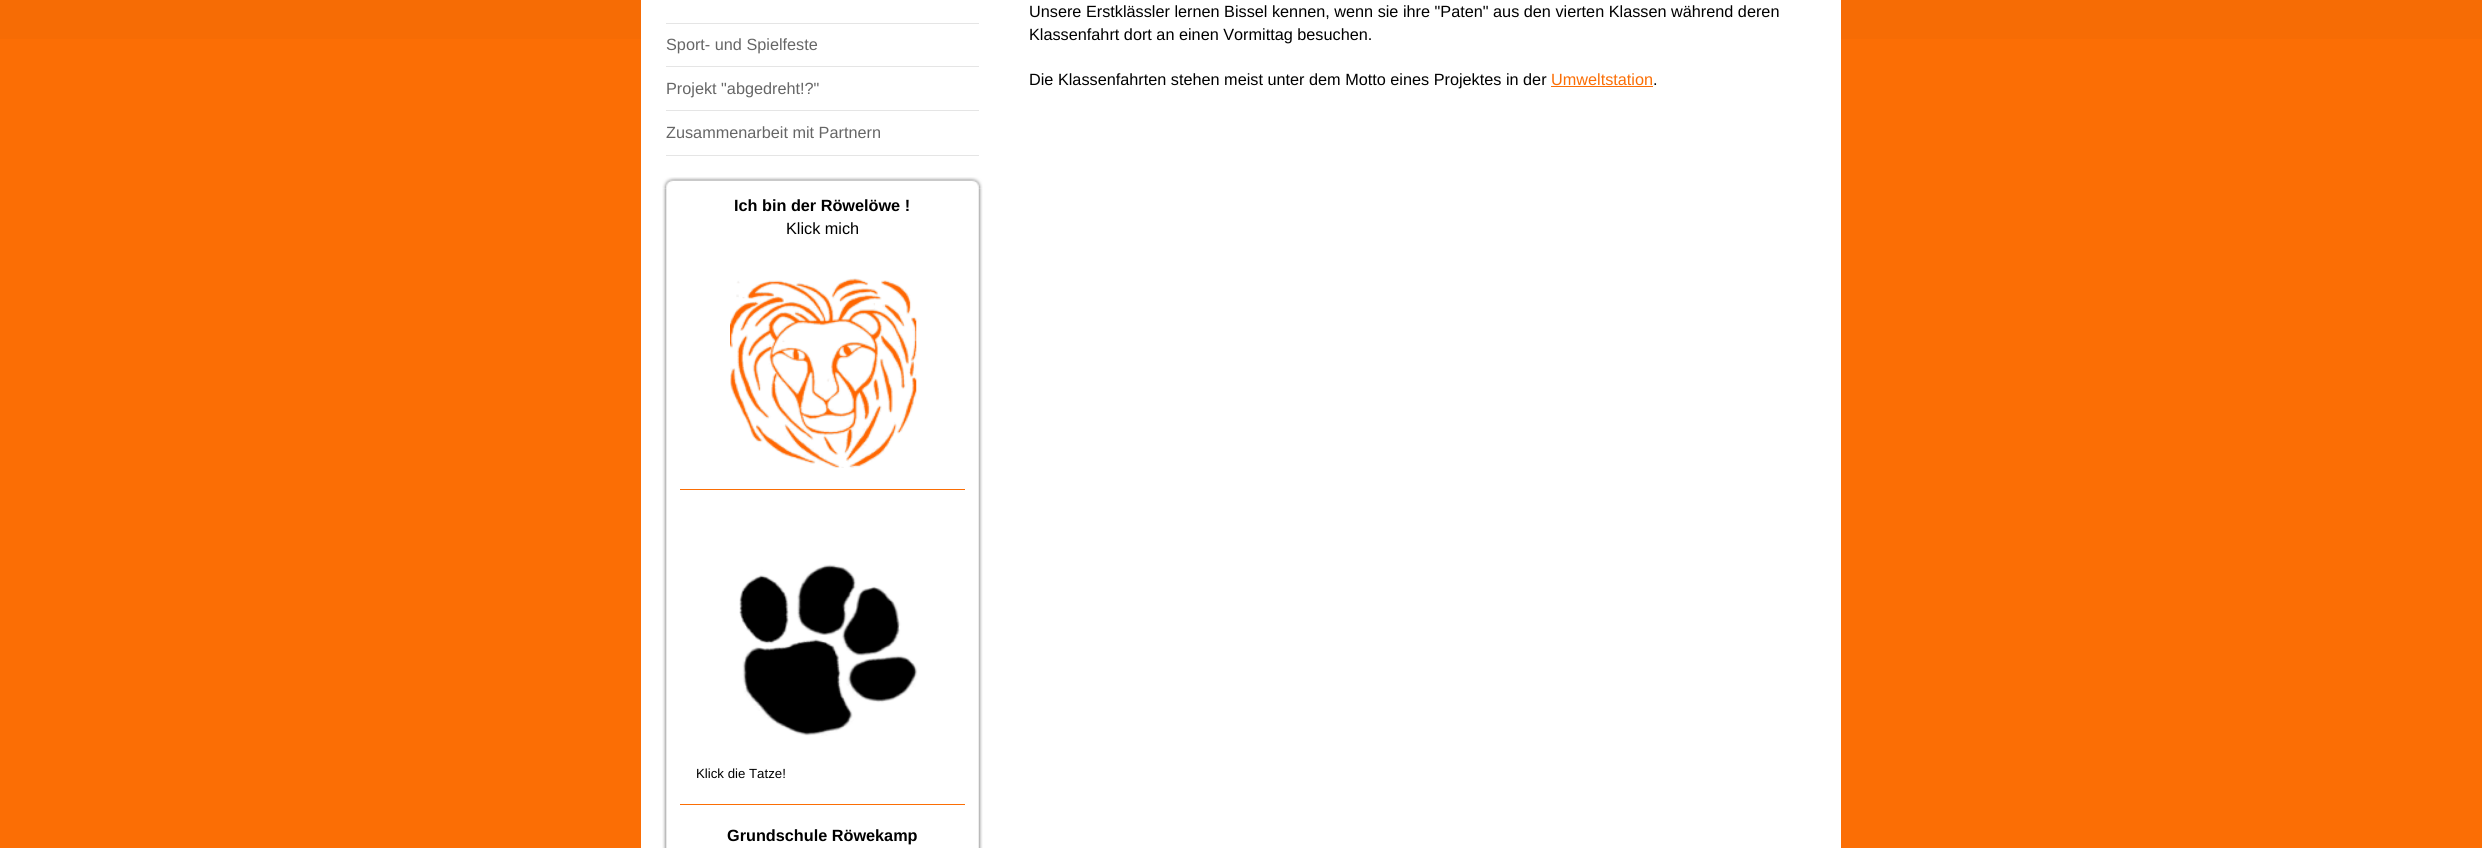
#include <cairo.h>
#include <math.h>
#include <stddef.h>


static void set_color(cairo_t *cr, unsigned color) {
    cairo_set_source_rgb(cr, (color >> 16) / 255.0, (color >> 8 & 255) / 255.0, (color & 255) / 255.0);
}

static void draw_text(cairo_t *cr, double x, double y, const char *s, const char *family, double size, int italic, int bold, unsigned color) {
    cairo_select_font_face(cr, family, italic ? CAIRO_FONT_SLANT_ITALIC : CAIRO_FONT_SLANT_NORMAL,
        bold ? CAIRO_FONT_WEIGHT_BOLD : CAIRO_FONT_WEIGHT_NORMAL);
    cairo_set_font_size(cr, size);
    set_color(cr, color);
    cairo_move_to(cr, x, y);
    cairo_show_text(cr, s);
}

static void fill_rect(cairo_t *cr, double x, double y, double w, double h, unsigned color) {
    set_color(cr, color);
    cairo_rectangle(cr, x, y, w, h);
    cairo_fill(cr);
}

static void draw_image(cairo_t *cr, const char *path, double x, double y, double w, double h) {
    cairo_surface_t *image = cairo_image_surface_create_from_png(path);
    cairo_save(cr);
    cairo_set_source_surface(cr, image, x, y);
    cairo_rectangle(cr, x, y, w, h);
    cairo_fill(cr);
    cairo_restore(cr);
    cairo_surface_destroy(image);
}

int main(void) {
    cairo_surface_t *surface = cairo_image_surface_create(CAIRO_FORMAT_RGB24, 2482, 848);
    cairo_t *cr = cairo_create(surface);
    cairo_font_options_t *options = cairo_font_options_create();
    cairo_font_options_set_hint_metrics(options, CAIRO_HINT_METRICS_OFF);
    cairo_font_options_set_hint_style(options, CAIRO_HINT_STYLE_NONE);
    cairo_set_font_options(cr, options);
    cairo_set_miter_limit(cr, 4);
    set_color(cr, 0xFB6E05);
    cairo_paint(cr);
    fill_rect(cr, 0, 0, 2482, 39, 0xF66C05);
    fill_rect(cr, 641, 0, 1200, 848, 0xFFFFFF);
    fill_rect(cr, 666, 23, 313, 1, 0xE5E5E5);
    draw_text(cr, 666, 50, "Sport- und Spielfeste", "Liberation Sans", 16.25, 0, 0, 0x666666);
    fill_rect(cr, 666, 66, 313, 1, 0xE5E5E5);
    draw_text(cr, 666, 94, "Projekt \"abgedreht!?\"", "Liberation Sans", 16.25, 0, 0, 0x666666);
    fill_rect(cr, 666, 110, 313, 1, 0xE5E5E5);
    fill_rect(cr, 666, 155, 313, 1, 0xE5E5E5);
    draw_text(cr, 666, 138, "Zusammenarbeit mit Partnern", "Liberation Sans", 16.25, 0, 0, 0x666666);
    draw_image(cr, "assets/img1.png", 662, 177, 321, 12);
    draw_image(cr, "assets/img2.png", 662, 188, 321, 660);
    draw_text(cr, 734, 211, "Ich bin der Röwelöwe !", "Liberation Sans", 16.25, 0, 1, 0x000000);
    draw_text(cr, 786, 234, "Klick mich", "Liberation Sans", 16.25, 0, 0, 0x000000);
    draw_image(cr, "assets/img3.png", 730, 278, 187, 190);
    fill_rect(cr, 680, 489, 285, 1, 0xFB6E05);
    draw_image(cr, "assets/img4.png", 739, 564, 179, 172);
    draw_text(cr, 696, 778, "Klick die Tatze!", "Liberation Sans", 13.25, 0, 0, 0x000000);
    fill_rect(cr, 680, 804, 285, 1, 0xFB6E05);
    draw_text(cr, 727, 841, "Grundschule Röwekamp", "Liberation Sans", 16.25, 0, 1, 0x000000);
    draw_text(cr, 1029, 17, "Unsere Erstklässler lernen Bissel kennen, wenn sie ihre \"Paten\" aus den vierten Klassen während deren", "Liberation Sans", 16.25, 0, 0, 0x000000);
    draw_text(cr, 1029, 40, "Klassenfahrt dort an einen Vormittag besuchen.", "Liberation Sans", 16.25, 0, 0, 0x000000);
    draw_text(cr, 1029, 85, "Die Klassenfahrten stehen meist unter dem Motto eines Projektes in der", "Liberation Sans", 16.25, 0, 0, 0x000000);
    draw_text(cr, 1551, 85, "Umweltstation", "Liberation Sans", 16.25, 0, 0, 0xFB6E05);
    fill_rect(cr, 1551, 86, 102, 1, 0xFB6E05);
    draw_text(cr, 1653, 85, ".", "Liberation Sans", 16.25, 0, 0, 0x000000);
    cairo_surface_write_to_png(surface, "output.png");
    cairo_font_options_destroy(options);
    cairo_destroy(cr);
    cairo_surface_destroy(surface);
    return 0;
}
